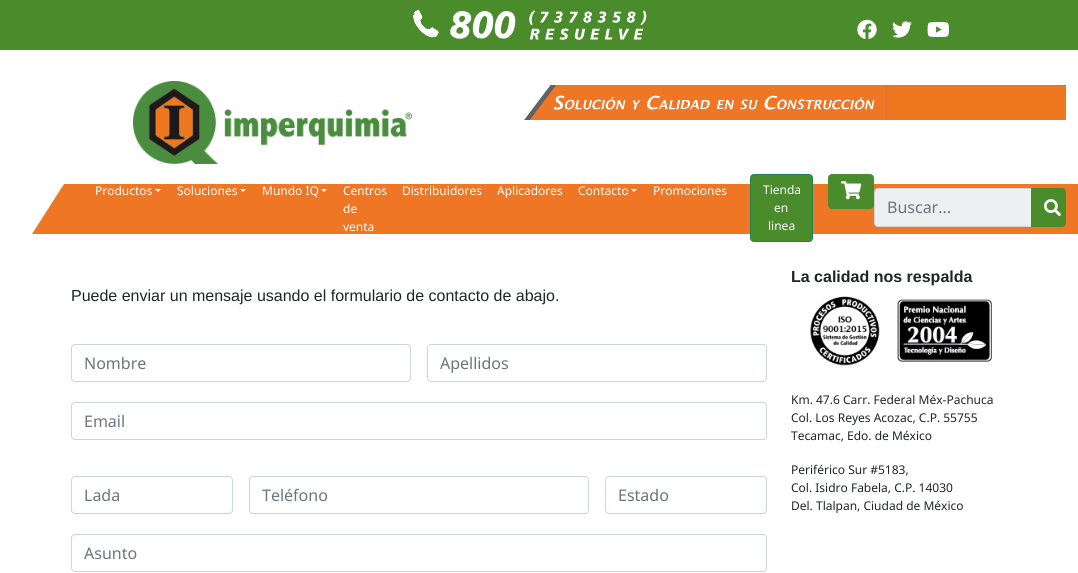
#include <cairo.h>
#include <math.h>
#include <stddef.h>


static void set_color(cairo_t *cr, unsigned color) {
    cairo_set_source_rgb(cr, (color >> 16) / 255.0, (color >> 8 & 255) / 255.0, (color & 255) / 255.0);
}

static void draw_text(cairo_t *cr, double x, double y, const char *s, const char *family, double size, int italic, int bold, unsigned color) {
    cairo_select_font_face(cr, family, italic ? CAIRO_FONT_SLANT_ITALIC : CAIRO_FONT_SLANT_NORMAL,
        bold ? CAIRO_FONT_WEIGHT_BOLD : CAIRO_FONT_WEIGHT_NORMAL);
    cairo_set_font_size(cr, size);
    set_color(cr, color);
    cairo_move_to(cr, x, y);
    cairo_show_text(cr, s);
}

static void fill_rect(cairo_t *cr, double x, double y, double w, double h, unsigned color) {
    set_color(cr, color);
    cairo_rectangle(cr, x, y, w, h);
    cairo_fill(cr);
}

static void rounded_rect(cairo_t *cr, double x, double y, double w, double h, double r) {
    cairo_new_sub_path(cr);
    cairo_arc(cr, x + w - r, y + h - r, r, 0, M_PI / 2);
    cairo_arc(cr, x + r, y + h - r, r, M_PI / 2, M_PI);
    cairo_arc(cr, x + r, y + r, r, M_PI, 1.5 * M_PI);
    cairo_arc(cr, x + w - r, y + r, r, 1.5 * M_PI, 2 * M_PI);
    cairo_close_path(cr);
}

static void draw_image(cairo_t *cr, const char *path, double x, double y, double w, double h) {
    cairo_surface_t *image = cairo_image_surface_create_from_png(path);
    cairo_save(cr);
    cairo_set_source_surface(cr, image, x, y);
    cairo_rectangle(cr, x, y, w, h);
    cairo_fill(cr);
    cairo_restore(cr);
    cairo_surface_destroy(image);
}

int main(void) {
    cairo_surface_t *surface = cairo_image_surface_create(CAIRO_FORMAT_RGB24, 1078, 573);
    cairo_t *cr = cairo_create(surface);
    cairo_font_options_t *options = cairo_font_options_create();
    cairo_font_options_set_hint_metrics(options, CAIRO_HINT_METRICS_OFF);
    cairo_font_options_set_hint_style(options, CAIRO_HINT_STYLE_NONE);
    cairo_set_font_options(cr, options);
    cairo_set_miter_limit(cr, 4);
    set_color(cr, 0xFFFFFF);
    cairo_paint(cr);
    fill_rect(cr, 0, 0, 1078, 50, 0x4A8B2C);
    draw_image(cr, "assets/img1.png", 413, 10, 234, 30);
    draw_image(cr, "assets/img2.png", 857, 19, 20, 20);
    draw_image(cr, "assets/img3.png", 892, 21, 20, 17);
    draw_image(cr, "assets/img4.png", 927, 22, 22, 15);
    draw_image(cr, "assets/img5.png", 133, 81, 279, 83);
    fill_rect(cr, 886, 85, 180, 35, 0xED771E);
    draw_image(cr, "assets/img6.png", 524, 85, 363, 35);
    set_color(cr, 0xEE7624);
    cairo_new_path(cr);
    cairo_move_to(cr, 64, 184);
    cairo_line_to(cr, 119, 184);
    cairo_line_to(cr, 87, 234);
    cairo_line_to(cr, 32, 234);
    cairo_close_path(cr);
    cairo_fill(cr);
    fill_rect(cr, 87, 184, 991, 50, 0xEE7624);
    draw_text(cr, 95, 195, "Productos", "Noto Sans", 12, 0, 0, 0xFFFFFF);
    cairo_new_path(cr);
    cairo_move_to(cr, 155, 189);
    cairo_line_to(cr, 161, 189);
    cairo_line_to(cr, 158, 192);
    cairo_close_path(cr);
    cairo_fill(cr);
    draw_text(cr, 177, 195, "Soluciones", "Noto Sans", 12, 0, 0, 0xFFFFFF);
    cairo_new_path(cr);
    cairo_move_to(cr, 240, 189);
    cairo_line_to(cr, 246, 189);
    cairo_line_to(cr, 243, 192);
    cairo_close_path(cr);
    cairo_fill(cr);
    draw_text(cr, 262, 195, "Mundo IQ", "Noto Sans", 12, 0, 0, 0xFFFFFF);
    cairo_new_path(cr);
    cairo_move_to(cr, 321, 189);
    cairo_line_to(cr, 327, 189);
    cairo_line_to(cr, 324, 192);
    cairo_close_path(cr);
    cairo_fill(cr);
    draw_text(cr, 343, 195, "Centros", "Noto Sans", 12, 0, 0, 0xFFFFFF);
    draw_text(cr, 343, 213, "de", "Noto Sans", 12, 0, 0, 0xFFFFFF);
    draw_text(cr, 343, 231, "venta", "Noto Sans", 12, 0, 0, 0xFFFFFF);
    draw_text(cr, 402, 195, "Distribuidores", "Noto Sans", 12, 0, 0, 0xFFFFFF);
    draw_text(cr, 497, 195, "Aplicadores", "Noto Sans", 12, 0, 0, 0xFFFFFF);
    draw_text(cr, 578, 195, "Contacto", "Noto Sans", 12, 0, 0, 0xFFFFFF);
    cairo_new_path(cr);
    cairo_move_to(cr, 631, 189);
    cairo_line_to(cr, 637, 189);
    cairo_line_to(cr, 634, 192);
    cairo_close_path(cr);
    cairo_fill(cr);
    draw_text(cr, 653, 195, "Promociones", "Noto Sans", 12, 0, 0, 0xFFFFFF);
    set_color(cr, 0x4A8B2C);
    rounded_rect(cr, 750.5, 174.5, 62, 67, 3.5);
    cairo_fill_preserve(cr);
    set_color(cr, 0x198754);
    cairo_set_line_width(cr, 1);
    cairo_stroke(cr);
    draw_text(cr, 763, 194, "Tienda", "Noto Sans", 12, 0, 0, 0xFFFFFF);
    draw_text(cr, 774, 212, "en", "Noto Sans", 12, 0, 0, 0xFFFFFF);
    draw_text(cr, 768, 230, "linea", "Noto Sans", 12, 0, 0, 0xFFFFFF);
    set_color(cr, 0x4A8B2C);
    rounded_rect(cr, 828.5, 174.5, 45, 34, 3.5);
    cairo_fill_preserve(cr);
    cairo_stroke(cr);
    draw_image(cr, "assets/img7.png", 841, 181, 21, 19);
    set_color(cr, 0xECF0F1);
    rounded_rect(cr, 874.5, 188.5, 162, 38, 3.5);
    cairo_fill_preserve(cr);
    set_color(cr, 0xCED4DA);
    cairo_stroke(cr);
    draw_text(cr, 887, 213, "Buscar...", "Noto Sans", 16, 0, 0, 0x6C757D);
    set_color(cr, 0x4A8B2C);
    cairo_new_path(cr);
    cairo_move_to(cr, 1031.5, 188.5);
    cairo_line_to(cr, 1062, 188.5);
    cairo_curve_to(cr, 1064, 188.5, 1065.5, 190, 1065.5, 192);
    cairo_line_to(cr, 1065.5, 223);
    cairo_curve_to(cr, 1065.5, 225, 1064, 226.5, 1062, 226.5);
    cairo_line_to(cr, 1031.5, 226.5);
    cairo_close_path(cr);
    cairo_fill_preserve(cr);
    cairo_stroke(cr);
    draw_image(cr, "assets/img8.png", 1044, 199, 17, 18);
    draw_text(cr, 71, 301, "Puede enviar un mensaje usando el formulario de contacto de abajo.", "Liberation Sans", 16, 0, 0, 0x212529);
    rounded_rect(cr, 71.5, 344.5, 339, 37, 3.5);
    set_color(cr, 0xCED4DA);
    cairo_stroke(cr);
    draw_text(cr, 84, 369, "Nombre", "Noto Sans", 16, 0, 0, 0x6C757D);
    rounded_rect(cr, 427.5, 344.5, 339, 37, 3.5);
    set_color(cr, 0xCED4DA);
    cairo_stroke(cr);
    draw_text(cr, 440, 369, "Apellidos", "Noto Sans", 16, 0, 0, 0x6C757D);
    rounded_rect(cr, 71.5, 402.5, 695, 37, 3.5);
    set_color(cr, 0xCED4DA);
    cairo_stroke(cr);
    draw_text(cr, 84, 427, "Email", "Noto Sans", 16, 0, 0, 0x6C757D);
    rounded_rect(cr, 71.5, 476.5, 161, 37, 3.5);
    set_color(cr, 0xCED4DA);
    cairo_stroke(cr);
    draw_text(cr, 84, 501, "Lada", "Noto Sans", 16, 0, 0, 0x6C757D);
    rounded_rect(cr, 249.5, 476.5, 339, 37, 3.5);
    set_color(cr, 0xCED4DA);
    cairo_stroke(cr);
    draw_text(cr, 262, 501, "Teléfono", "Noto Sans", 16, 0, 0, 0x6C757D);
    rounded_rect(cr, 605.5, 476.5, 161, 37, 3.5);
    set_color(cr, 0xCED4DA);
    cairo_stroke(cr);
    draw_text(cr, 618, 501, "Estado", "Noto Sans", 16, 0, 0, 0x6C757D);
    rounded_rect(cr, 71.5, 534.5, 695, 37, 3.5);
    set_color(cr, 0xCED4DA);
    cairo_stroke(cr);
    draw_text(cr, 84, 559, "Asunto", "Noto Sans", 16, 0, 0, 0x6C757D);
    draw_text(cr, 791, 282, "La calidad nos respalda", "Liberation Sans", 16, 0, 1, 0x212529);
    draw_image(cr, "assets/img9.png", 810, 296, 182, 70);
    draw_text(cr, 791, 404, "Km. 47.6 Carr. Federal Méx-Pachuca", "Noto Sans", 12, 0, 0, 0x212529);
    draw_text(cr, 791, 422, "Col. Los Reyes Acozac, C.P. 55755", "Noto Sans", 12, 0, 0, 0x212529);
    draw_text(cr, 791, 440, "Tecamac, Edo. de México", "Noto Sans", 12, 0, 0, 0x212529);
    draw_text(cr, 791, 474, "Periférico Sur #5183,", "Noto Sans", 12, 0, 0, 0x212529);
    draw_text(cr, 791, 492, "Col. Isidro Fabela, C.P. 14030", "Noto Sans", 12, 0, 0, 0x212529);
    draw_text(cr, 791, 510, "Del. Tlalpan, Ciudad de México", "Noto Sans", 12, 0, 0, 0x212529);
    cairo_surface_write_to_png(surface, "output.png");
    cairo_font_options_destroy(options);
    cairo_destroy(cr);
    cairo_surface_destroy(surface);
    return 0;
}
